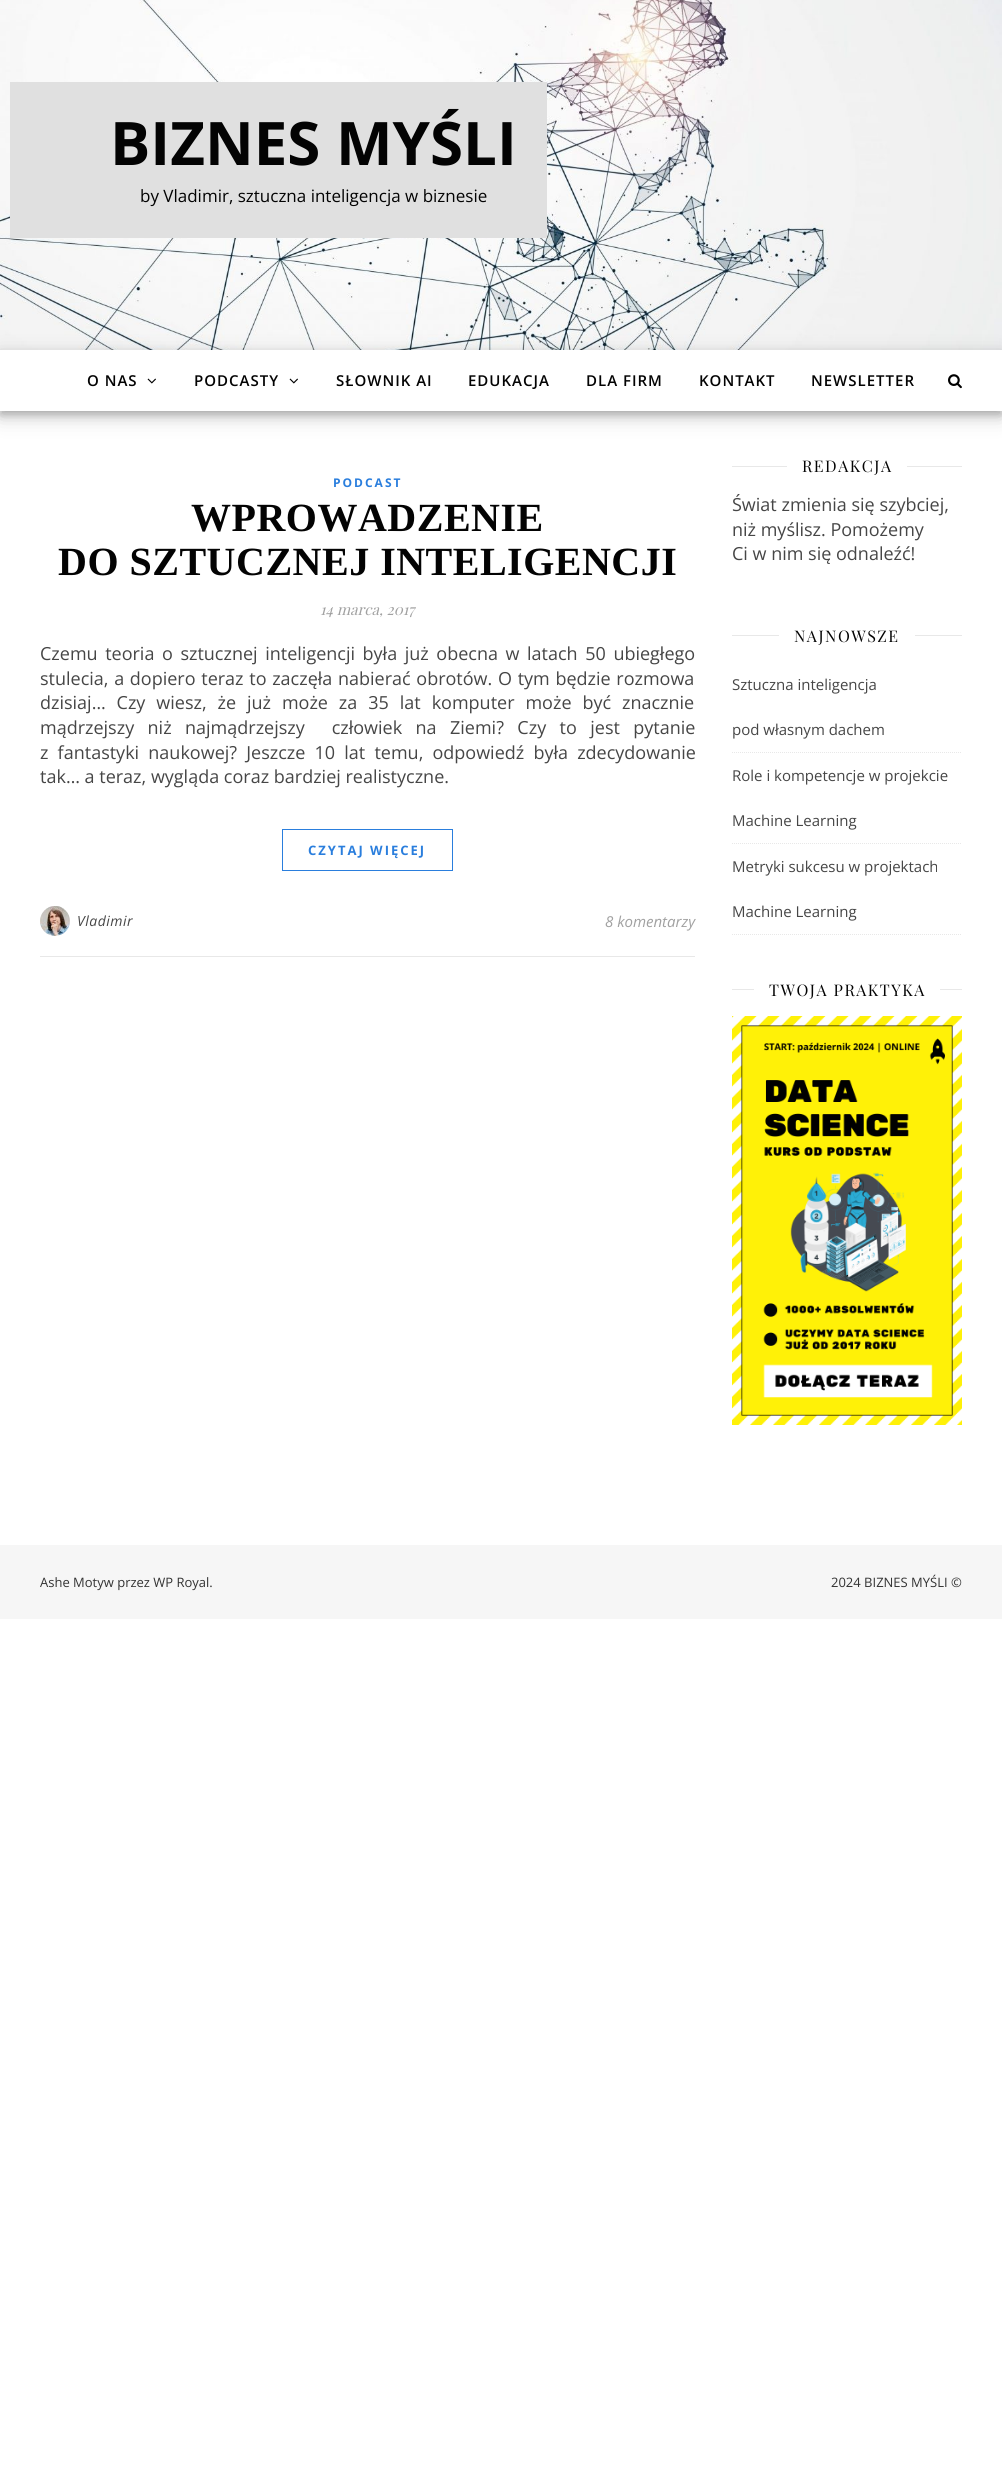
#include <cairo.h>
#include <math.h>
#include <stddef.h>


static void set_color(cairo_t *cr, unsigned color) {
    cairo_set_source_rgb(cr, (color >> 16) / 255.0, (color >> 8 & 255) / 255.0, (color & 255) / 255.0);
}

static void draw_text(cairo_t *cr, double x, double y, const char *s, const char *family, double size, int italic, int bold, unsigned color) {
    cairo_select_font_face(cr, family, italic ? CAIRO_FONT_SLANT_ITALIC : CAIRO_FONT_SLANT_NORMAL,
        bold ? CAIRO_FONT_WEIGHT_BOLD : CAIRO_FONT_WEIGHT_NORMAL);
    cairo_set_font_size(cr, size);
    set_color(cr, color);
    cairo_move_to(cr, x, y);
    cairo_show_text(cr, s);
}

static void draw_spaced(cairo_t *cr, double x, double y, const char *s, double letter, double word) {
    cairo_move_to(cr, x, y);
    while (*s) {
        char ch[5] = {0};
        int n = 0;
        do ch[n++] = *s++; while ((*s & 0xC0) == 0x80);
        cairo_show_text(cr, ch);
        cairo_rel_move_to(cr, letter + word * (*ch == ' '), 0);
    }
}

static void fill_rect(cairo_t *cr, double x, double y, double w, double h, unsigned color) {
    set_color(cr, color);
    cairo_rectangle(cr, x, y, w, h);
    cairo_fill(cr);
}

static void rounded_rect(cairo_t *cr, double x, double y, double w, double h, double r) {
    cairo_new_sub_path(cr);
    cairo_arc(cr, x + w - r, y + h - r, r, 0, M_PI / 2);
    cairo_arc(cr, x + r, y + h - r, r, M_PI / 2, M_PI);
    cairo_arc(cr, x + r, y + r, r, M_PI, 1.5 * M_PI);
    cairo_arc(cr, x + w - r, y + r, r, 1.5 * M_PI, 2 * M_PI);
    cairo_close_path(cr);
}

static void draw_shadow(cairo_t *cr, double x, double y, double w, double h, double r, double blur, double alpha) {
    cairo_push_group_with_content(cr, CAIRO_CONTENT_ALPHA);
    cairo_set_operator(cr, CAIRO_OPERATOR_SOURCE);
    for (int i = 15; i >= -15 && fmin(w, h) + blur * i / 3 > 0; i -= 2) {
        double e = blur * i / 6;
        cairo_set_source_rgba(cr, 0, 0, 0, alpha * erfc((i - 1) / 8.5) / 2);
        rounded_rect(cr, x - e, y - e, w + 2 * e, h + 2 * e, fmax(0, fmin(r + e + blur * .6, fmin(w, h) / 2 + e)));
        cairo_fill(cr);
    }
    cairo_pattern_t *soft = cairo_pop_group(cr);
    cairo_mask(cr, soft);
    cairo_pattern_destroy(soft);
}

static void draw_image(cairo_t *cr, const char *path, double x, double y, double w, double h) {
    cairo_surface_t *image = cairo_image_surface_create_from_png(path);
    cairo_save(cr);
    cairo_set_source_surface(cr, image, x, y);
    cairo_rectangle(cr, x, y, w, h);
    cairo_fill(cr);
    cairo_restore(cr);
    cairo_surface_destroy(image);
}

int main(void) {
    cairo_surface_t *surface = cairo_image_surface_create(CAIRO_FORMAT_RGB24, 1002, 2482);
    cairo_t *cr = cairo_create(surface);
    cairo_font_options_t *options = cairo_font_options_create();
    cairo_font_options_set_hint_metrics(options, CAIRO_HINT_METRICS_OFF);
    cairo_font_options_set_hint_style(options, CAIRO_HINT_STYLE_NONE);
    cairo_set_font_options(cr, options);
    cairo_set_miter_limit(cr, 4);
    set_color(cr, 0xFFFFFF);
    cairo_paint(cr);
    draw_image(cr, "assets/img1.png", 0, 0, 1002, 350);
    fill_rect(cr, 10, 82, 537, 156, 0xE0E0E0);
    draw_text(cr, 110, 165, "BIZNES MYŚLI", "Open Sans", 60, 0, 1, 0x030303);
    draw_text(cr, 140, 202, "by Vladimir, sztuczna inteligencja w biznesie", "Open Sans", 17, 0, 0, 0x030303);
    cairo_save(cr);
    cairo_set_fill_rule(cr, CAIRO_FILL_RULE_EVEN_ODD);
    cairo_new_path(cr);
    cairo_move_to(cr, 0, 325);
    cairo_line_to(cr, 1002, 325);
    cairo_line_to(cr, 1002, 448);
    cairo_line_to(cr, 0, 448);
    cairo_close_path(cr);
    cairo_move_to(cr, 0, 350);
    cairo_line_to(cr, 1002, 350);
    cairo_line_to(cr, 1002, 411);
    cairo_line_to(cr, 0, 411);
    cairo_close_path(cr);
    cairo_clip(cr);
    set_color(cr, 0x000000);
    draw_shadow(cr, 0, 356, 1002, 61, 0, 10, 0.19);
    cairo_restore(cr);
    cairo_save(cr);
    cairo_set_fill_rule(cr, CAIRO_FILL_RULE_EVEN_ODD);
    cairo_new_path(cr);
    cairo_move_to(cr, 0, 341);
    cairo_line_to(cr, 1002, 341);
    cairo_line_to(cr, 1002, 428);
    cairo_line_to(cr, 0, 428);
    cairo_close_path(cr);
    cairo_move_to(cr, 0, 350);
    cairo_line_to(cr, 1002, 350);
    cairo_line_to(cr, 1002, 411);
    cairo_line_to(cr, 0, 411);
    cairo_close_path(cr);
    cairo_clip(cr);
    set_color(cr, 0x000000);
    draw_shadow(cr, 0, 354, 1002, 61, 0, 4, 0.2);
    cairo_restore(cr);
    cairo_select_font_face(cr, "Open Sans SemiBold", CAIRO_FONT_SLANT_NORMAL, CAIRO_FONT_WEIGHT_NORMAL);
    cairo_set_font_size(cr, 15);
    draw_spaced(cr, 87, 386, "O NAS", 1, 0);
    draw_image(cr, "assets/img2.png", 147, 378, 9, 6);
    draw_spaced(cr, 194, 386, "PODCASTY", 1, 0);
    draw_image(cr, "assets/img2.png", 289, 378, 9, 6);
    draw_spaced(cr, 336, 386, "SŁOWNIK AI", 1, 0);
    draw_spaced(cr, 468, 386, "EDUKACJA", 1, 0);
    draw_spaced(cr, 586, 386, "DLA FIRM", 1, 0);
    draw_spaced(cr, 699, 386, "KONTAKT", 1, 0);
    draw_spaced(cr, 811, 386, "NEWSLETTER", 1, 0);
    draw_image(cr, "assets/img3.png", 948, 374, 14, 15);
    cairo_select_font_face(cr, "Open Sans", CAIRO_FONT_SLANT_NORMAL, CAIRO_FONT_WEIGHT_BOLD);
    cairo_set_font_size(cr, 12);
    set_color(cr, 0x2A7EDD);
    draw_spaced(cr, 333, 487, "PODCAST", 2, 0);
    cairo_select_font_face(cr, "Liberation Serif", CAIRO_FONT_SLANT_NORMAL, CAIRO_FONT_WEIGHT_BOLD);
    cairo_set_font_size(cr, 40);
    set_color(cr, 0x030303);
    draw_spaced(cr, 191, 531, "WPROWADZENIE", 0.5, 0);
    draw_spaced(cr, 58, 575, "DO SZTUCZNEJ INTELIGENCJI", 0.5, 0);
    draw_text(cr, 320, 615, "14 marca, 2017", "Playfair Display", 15, 1, 0, 0xA1A1A1);
    cairo_select_font_face(cr, "Open Sans", CAIRO_FONT_SLANT_NORMAL, CAIRO_FONT_WEIGHT_NORMAL);
    cairo_set_font_size(cr, 18);
    set_color(cr, 0x464646);
    draw_spaced(cr, 40, 660, "Czemu teoria o sztucznej inteligencji była już obecna w latach 50 ubiegłego", 0, 2.9);
    draw_spaced(cr, 40, 685, "stulecia, a dopiero teraz to zaczęła nabierać obrotów. O tym będzie rozmowa", 0, 1);
    draw_spaced(cr, 40, 709, "dzisiaj… Czy wiesz, że już może za 35 lat komputer może być znacznie", 0, 6.25);
    draw_spaced(cr, 40, 734, "mądrzejszy niż najmądrzejszy  człowiek na Ziemi? Czy to jest pytanie", 0, 8.75);
    draw_spaced(cr, 40, 759, "z fantastyki naukowej? Jeszcze 10 lat temu, odpowiedź była zdecydowanie", 0, 4.5);
    draw_text(cr, 40, 783, "tak… a teraz, wygląda coraz bardziej realistyczne.", "Open Sans", 18, 0, 0, 0x464646);
    cairo_rectangle(cr, 282.5, 829.5, 170, 41);
    set_color(cr, 0x2A7EDD);
    cairo_set_line_width(cr, 1);
    cairo_stroke(cr);
    cairo_select_font_face(cr, "Open Sans", CAIRO_FONT_SLANT_NORMAL, CAIRO_FONT_WEIGHT_BOLD);
    cairo_set_font_size(cr, 13);
    draw_spaced(cr, 308, 855, "CZYTAJ WIĘCEJ", 2, 0);
    fill_rect(cr, 40, 956, 655, 1, 0xE8E8E8);
    draw_image(cr, "assets/img4.png", 40, 906, 30, 30);
    cairo_select_font_face(cr, "Open Sans", CAIRO_FONT_SLANT_ITALIC, CAIRO_FONT_WEIGHT_NORMAL);
    cairo_set_font_size(cr, 14);
    set_color(cr, 0x464646);
    draw_spaced(cr, 77, 926, "Vladimir", 0.5, 0);
    draw_text(cr, 605, 927, "8 komentarzy", "Open Sans", 15, 1, 0, 0xA1A1A1);
    fill_rect(cr, 732, 466, 55, 1, 0xE8E8E8);
    cairo_select_font_face(cr, "Playfair Display", CAIRO_FONT_SLANT_NORMAL, CAIRO_FONT_WEIGHT_NORMAL);
    cairo_set_font_size(cr, 16);
    set_color(cr, 0x030303);
    draw_spaced(cr, 802, 472, "REDAKCJA", 1.5, 0);
    fill_rect(cr, 907, 466, 55, 1, 0xE8E8E8);
    draw_text(cr, 732, 511, "Świat zmienia się szybciej,", "Open Sans", 18, 0, 0, 0x464646);
    draw_text(cr, 732, 536, "niż myślisz. Pomożemy", "Open Sans", 18, 0, 0, 0x464646);
    draw_text(cr, 732, 560, "Ci w nim się odnaleźć!", "Open Sans", 18, 0, 0, 0x464646);
    fill_rect(cr, 732, 635, 47, 1, 0xE8E8E8);
    cairo_select_font_face(cr, "Playfair Display", CAIRO_FONT_SLANT_NORMAL, CAIRO_FONT_WEIGHT_NORMAL);
    cairo_set_font_size(cr, 16);
    set_color(cr, 0x030303);
    draw_spaced(cr, 794, 642, "NAJNOWSZE", 1.5, 0);
    fill_rect(cr, 915, 635, 47, 1, 0xE8E8E8);
    cairo_new_path(cr);
    cairo_move_to(cr, 732, 752.5);
    cairo_line_to(cr, 962, 752.5);
    cairo_set_dash(cr, (double[]){1, 1}, 2, 0);
    cairo_stroke(cr);
    draw_text(cr, 732, 690, "Sztuczna inteligencja", "Open Sans", 15, 0, 0, 0x464646);
    draw_text(cr, 732, 735, "pod własnym dachem", "Open Sans", 15, 0, 0, 0x464646);
    cairo_new_path(cr);
    cairo_move_to(cr, 732, 843.5);
    cairo_line_to(cr, 962, 843.5);
    set_color(cr, 0xE8E8E8);
    cairo_stroke(cr);
    draw_text(cr, 732, 781, "Role i kompetencje w projekcie", "Open Sans", 15, 0, 0, 0x464646);
    draw_text(cr, 732, 826, "Machine Learning", "Open Sans", 15, 0, 0, 0x464646);
    cairo_new_path(cr);
    cairo_move_to(cr, 732, 934.5);
    cairo_line_to(cr, 962, 934.5);
    set_color(cr, 0xE8E8E8);
    cairo_stroke(cr);
    draw_text(cr, 732, 872, "Metryki sukcesu w projektach", "Open Sans", 15, 0, 0, 0x464646);
    draw_text(cr, 732, 917, "Machine Learning", "Open Sans", 15, 0, 0, 0x464646);
    fill_rect(cr, 732, 989, 22, 1, 0xE8E8E8);
    cairo_select_font_face(cr, "Playfair Display", CAIRO_FONT_SLANT_NORMAL, CAIRO_FONT_WEIGHT_NORMAL);
    cairo_set_font_size(cr, 16);
    set_color(cr, 0x030303);
    draw_spaced(cr, 769, 996, "TWOJA PRAKTYKA", 1.5, 0);
    fill_rect(cr, 940, 989, 22, 1, 0xE8E8E8);
    draw_image(cr, "assets/img5.png", 732, 1016, 230, 409);
    fill_rect(cr, 0, 1545, 1002, 74, 0xF6F6F6);
    draw_text(cr, 40, 1587, "Ashe Motyw przez WP Royal.", "Open Sans", 13, 0, 0, 0x333333);
    draw_text(cr, 831, 1587, "2024 BIZNES MYŚLI ©", "Open Sans", 13, 0, 0, 0x333333);
    cairo_surface_write_to_png(surface, "output.png");
    cairo_font_options_destroy(options);
    cairo_destroy(cr);
    cairo_surface_destroy(surface);
    return 0;
}
